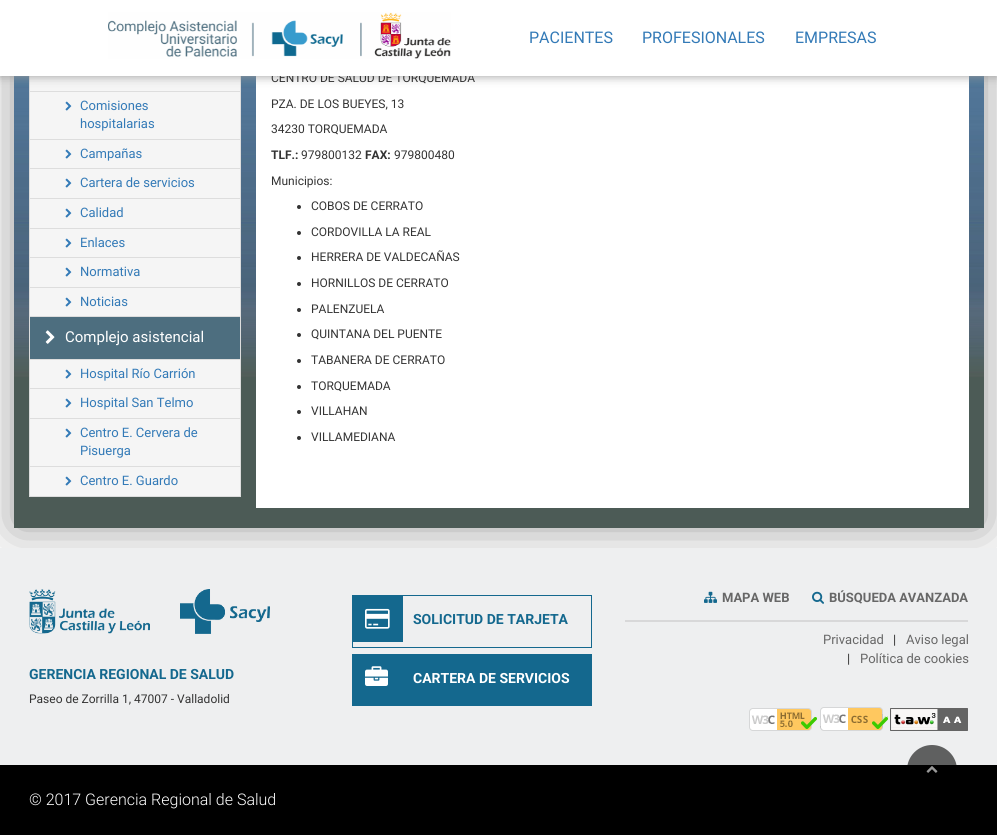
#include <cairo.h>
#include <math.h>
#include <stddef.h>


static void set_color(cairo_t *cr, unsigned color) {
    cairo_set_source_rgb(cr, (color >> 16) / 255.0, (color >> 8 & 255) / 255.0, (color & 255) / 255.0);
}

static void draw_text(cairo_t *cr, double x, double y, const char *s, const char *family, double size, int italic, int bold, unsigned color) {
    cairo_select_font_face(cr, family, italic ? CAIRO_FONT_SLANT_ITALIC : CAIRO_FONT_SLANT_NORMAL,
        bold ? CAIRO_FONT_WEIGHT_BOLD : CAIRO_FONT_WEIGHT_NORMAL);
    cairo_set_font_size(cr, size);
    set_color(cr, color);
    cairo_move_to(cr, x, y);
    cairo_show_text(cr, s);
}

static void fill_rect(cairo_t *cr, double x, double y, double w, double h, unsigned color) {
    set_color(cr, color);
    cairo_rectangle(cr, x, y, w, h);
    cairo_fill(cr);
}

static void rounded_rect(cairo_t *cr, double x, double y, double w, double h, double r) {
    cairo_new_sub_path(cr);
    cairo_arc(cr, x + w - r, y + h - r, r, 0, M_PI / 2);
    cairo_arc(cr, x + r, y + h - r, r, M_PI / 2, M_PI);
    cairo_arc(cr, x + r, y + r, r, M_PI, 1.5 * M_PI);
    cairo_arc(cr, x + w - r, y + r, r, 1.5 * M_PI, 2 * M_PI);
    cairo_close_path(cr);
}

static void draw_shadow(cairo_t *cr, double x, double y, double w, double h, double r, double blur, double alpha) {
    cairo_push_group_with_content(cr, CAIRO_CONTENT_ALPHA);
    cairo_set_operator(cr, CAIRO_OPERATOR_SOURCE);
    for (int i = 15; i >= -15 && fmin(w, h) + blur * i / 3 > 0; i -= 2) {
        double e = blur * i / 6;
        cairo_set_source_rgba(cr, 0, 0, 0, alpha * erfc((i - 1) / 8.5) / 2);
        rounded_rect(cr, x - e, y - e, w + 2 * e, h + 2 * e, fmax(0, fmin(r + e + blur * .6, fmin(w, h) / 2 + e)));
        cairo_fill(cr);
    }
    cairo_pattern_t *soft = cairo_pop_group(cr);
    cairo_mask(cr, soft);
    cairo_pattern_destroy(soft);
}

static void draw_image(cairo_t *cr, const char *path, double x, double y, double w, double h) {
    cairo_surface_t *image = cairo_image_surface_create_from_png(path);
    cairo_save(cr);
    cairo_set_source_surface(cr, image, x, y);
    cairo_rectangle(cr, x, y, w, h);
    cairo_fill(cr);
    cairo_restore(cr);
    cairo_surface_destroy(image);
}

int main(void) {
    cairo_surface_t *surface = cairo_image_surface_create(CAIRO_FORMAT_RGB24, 997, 835);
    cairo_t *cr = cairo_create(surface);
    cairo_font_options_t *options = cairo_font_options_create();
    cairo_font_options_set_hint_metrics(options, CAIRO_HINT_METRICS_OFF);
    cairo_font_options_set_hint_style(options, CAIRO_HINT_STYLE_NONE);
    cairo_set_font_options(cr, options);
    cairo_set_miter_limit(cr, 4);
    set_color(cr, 0xFFFFFF);
    cairo_paint(cr);
    set_color(cr, 0x000000);
    draw_shadow(cr, 14, -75, 970, 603, 0, 25, 0.4);
    draw_image(cr, "assets/img2.png", 14, 76, 970, 301);
    cairo_rectangle(cr, 29.5, -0.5, 211, 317);
    set_color(cr, 0xDDDDDD);
    cairo_set_line_width(cr, 1);
    cairo_stroke(cr);
    fill_rect(cr, 30, 91, 210, 1, 0xDDDDDD);
    fill_rect(cr, 30, 76, 210, 15, 0xF5F5F5);
    fill_rect(cr, 14, 377, 970, 151, 0x4C5B56);
    fill_rect(cr, 256, 76, 713, 432, 0xFFFFFF);
    set_color(cr, 0x999999);
    draw_shadow(cr, 0, 0, 997, 76, 0, 5, 1);
    draw_text(cr, 271, 82, "CENTRO DE SALUD DE TORQUEMADA", "Roboto", 12, 0, 0, 0x333333);
    fill_rect(cr, 0, 0, 997, 76, 0xFFFFFF);
    draw_image(cr, "assets/img1.png", 108, 12, 343, 47);
    draw_text(cr, 529, 43, "PACIENTES", "Roboto", 16, 0, 0, 0x337AB7);
    draw_text(cr, 642, 43, "PROFESIONALES", "Roboto", 16, 0, 0, 0x337AB7);
    draw_text(cr, 795, 43, "EMPRESAS", "Roboto", 16, 0, 0, 0x337AB7);
    fill_rect(cr, 30, 139, 210, 1, 0xDDDDDD);
    fill_rect(cr, 30, 92, 210, 47, 0xF5F5F5);
    draw_image(cr, "assets/img3.png", 65, 101, 7, 10);
    draw_text(cr, 80, 110, "Comisiones", "Roboto", 13, 0, 0, 0x337AB7);
    draw_text(cr, 80, 128, "hospitalarias", "Roboto", 13, 0, 0, 0x337AB7);
    fill_rect(cr, 30, 168, 210, 1, 0xDDDDDD);
    fill_rect(cr, 30, 140, 210, 28, 0xF5F5F5);
    draw_image(cr, "assets/img3.png", 65, 149, 7, 10);
    draw_text(cr, 80, 158, "Campañas", "Roboto", 13, 0, 0, 0x337AB7);
    fill_rect(cr, 30, 198, 210, 1, 0xDDDDDD);
    fill_rect(cr, 30, 169, 210, 29, 0xF5F5F5);
    draw_image(cr, "assets/img3.png", 65, 178, 7, 10);
    draw_text(cr, 80, 187, "Cartera de servicios", "Roboto", 13, 0, 0, 0x337AB7);
    fill_rect(cr, 30, 228, 210, 1, 0xDDDDDD);
    fill_rect(cr, 30, 199, 210, 29, 0xF5F5F5);
    draw_image(cr, "assets/img3.png", 65, 208, 7, 10);
    draw_text(cr, 80, 217, "Calidad", "Roboto", 13, 0, 0, 0x337AB7);
    fill_rect(cr, 30, 257, 210, 1, 0xDDDDDD);
    fill_rect(cr, 30, 229, 210, 28, 0xF5F5F5);
    draw_image(cr, "assets/img3.png", 65, 238, 7, 10);
    draw_text(cr, 80, 247, "Enlaces", "Roboto", 13, 0, 0, 0x337AB7);
    fill_rect(cr, 30, 287, 210, 1, 0xDDDDDD);
    fill_rect(cr, 30, 258, 210, 29, 0xF5F5F5);
    draw_image(cr, "assets/img3.png", 65, 267, 7, 10);
    draw_text(cr, 80, 276, "Normativa", "Roboto", 13, 0, 0, 0x337AB7);
    fill_rect(cr, 30, 288, 210, 28, 0xF5F5F5);
    draw_image(cr, "assets/img3.png", 65, 297, 7, 10);
    draw_text(cr, 80, 306, "Noticias", "Roboto", 13, 0, 0, 0x337AB7);
    cairo_rectangle(cr, 29.5, 316.5, 211, 180);
    set_color(cr, 0xDDDDDD);
    cairo_stroke(cr);
    fill_rect(cr, 30, 317, 210, 42, 0x4D6E7F);
    draw_image(cr, "assets/img4.png", 45, 330, 10, 14);
    draw_text(cr, 65, 342, "Complejo asistencial", "Roboto", 15, 0, 0, 0xFFFFFF);
    fill_rect(cr, 30, 359, 210, 1, 0xDDDDDD);
    fill_rect(cr, 30, 388, 210, 1, 0xDDDDDD);
    fill_rect(cr, 30, 360, 210, 28, 0xF5F5F5);
    draw_image(cr, "assets/img3.png", 65, 369, 7, 10);
    draw_text(cr, 80, 378, "Hospital Río Carrión", "Roboto", 13, 0, 0, 0x337AB7);
    fill_rect(cr, 30, 418, 210, 1, 0xDDDDDD);
    fill_rect(cr, 30, 389, 210, 29, 0xF5F5F5);
    draw_image(cr, "assets/img3.png", 65, 398, 7, 10);
    draw_text(cr, 80, 407, "Hospital San Telmo", "Roboto", 13, 0, 0, 0x337AB7);
    fill_rect(cr, 30, 466, 210, 1, 0xDDDDDD);
    fill_rect(cr, 30, 419, 210, 47, 0xF5F5F5);
    draw_image(cr, "assets/img3.png", 65, 428, 7, 10);
    draw_text(cr, 80, 437, "Centro E. Cervera de", "Roboto", 13, 0, 0, 0x337AB7);
    draw_text(cr, 80, 455, "Pisuerga", "Roboto", 13, 0, 0, 0x337AB7);
    fill_rect(cr, 30, 467, 210, 29, 0xF5F5F5);
    draw_image(cr, "assets/img3.png", 65, 476, 7, 10);
    draw_text(cr, 80, 485, "Centro E. Guardo", "Roboto", 13, 0, 0, 0x337AB7);
    draw_text(cr, 271, 108, "PZA. DE LOS BUEYES, 13", "Roboto", 12, 0, 0, 0x333333);
    draw_text(cr, 271, 133, "34230 TORQUEMADA", "Roboto", 12, 0, 0, 0x333333);
    draw_text(cr, 271, 159, "TLF.:", "Roboto", 12, 0, 1, 0x333333);
    draw_text(cr, 301, 159, "979800132", "Roboto", 12, 0, 0, 0x333333);
    draw_text(cr, 365, 159, "FAX:", "Roboto", 12, 0, 1, 0x333333);
    draw_text(cr, 394, 159, "979800480", "Roboto", 12, 0, 0, 0x333333);
    draw_text(cr, 271, 185, "Municipios:", "Roboto", 12, 0, 0, 0x333333);
    cairo_new_path(cr);
    cairo_arc(cr, 299, 207, 2, 0, 2 * M_PI);
    cairo_fill(cr);
    draw_text(cr, 311, 210, "COBOS DE CERRATO", "Roboto", 12, 0, 0, 0x333333);
    cairo_new_path(cr);
    cairo_arc(cr, 299, 233, 2, 0, 2 * M_PI);
    cairo_fill(cr);
    draw_text(cr, 311, 236, "CORDOVILLA LA REAL", "Roboto", 12, 0, 0, 0x333333);
    cairo_new_path(cr);
    cairo_arc(cr, 299, 258, 2, 0, 2 * M_PI);
    cairo_fill(cr);
    draw_text(cr, 311, 261, "HERRERA DE VALDECAÑAS", "Roboto", 12, 0, 0, 0x333333);
    cairo_new_path(cr);
    cairo_arc(cr, 299, 284, 2, 0, 2 * M_PI);
    cairo_fill(cr);
    draw_text(cr, 311, 287, "HORNILLOS DE CERRATO", "Roboto", 12, 0, 0, 0x333333);
    cairo_new_path(cr);
    cairo_arc(cr, 299, 310, 2, 0, 2 * M_PI);
    cairo_fill(cr);
    draw_text(cr, 311, 313, "PALENZUELA", "Roboto", 12, 0, 0, 0x333333);
    cairo_new_path(cr);
    cairo_arc(cr, 299, 335, 2, 0, 2 * M_PI);
    cairo_fill(cr);
    draw_text(cr, 311, 338, "QUINTANA DEL PUENTE", "Roboto", 12, 0, 0, 0x333333);
    cairo_new_path(cr);
    cairo_arc(cr, 299, 361, 2, 0, 2 * M_PI);
    cairo_fill(cr);
    draw_text(cr, 311, 364, "TABANERA DE CERRATO", "Roboto", 12, 0, 0, 0x333333);
    cairo_new_path(cr);
    cairo_arc(cr, 299, 387, 2, 0, 2 * M_PI);
    cairo_fill(cr);
    draw_text(cr, 311, 390, "TORQUEMADA", "Roboto", 12, 0, 0, 0x333333);
    cairo_new_path(cr);
    cairo_arc(cr, 299, 412, 2, 0, 2 * M_PI);
    cairo_fill(cr);
    draw_text(cr, 311, 415, "VILLAHAN", "Roboto", 12, 0, 0, 0x333333);
    cairo_new_path(cr);
    cairo_arc(cr, 299, 438, 2, 0, 2 * M_PI);
    cairo_fill(cr);
    draw_text(cr, 311, 441, "VILLAMEDIANA", "Roboto", 12, 0, 0, 0x333333);
    fill_rect(cr, 0, 548, 997, 217, 0xEEEFF0);
    draw_image(cr, "assets/img5.png", 29, 589, 121, 45);
    draw_image(cr, "assets/img6.png", 180, 589, 90, 45);
    draw_text(cr, 29, 679, "GERENCIA REGIONAL DE SALUD", "Roboto", 14, 0, 1, 0x14688E);
    draw_text(cr, 29, 703, "Paseo de Zorrilla 1, 47007 - Valladolid", "Roboto", 12, 0, 0, 0x333333);
    cairo_rectangle(cr, 352.5, 595.5, 239, 52);
    set_color(cr, 0x14688E);
    cairo_stroke(cr);
    fill_rect(cr, 353, 596, 50, 46, 0x14688E);
    draw_image(cr, "assets/img7.png", 365, 608, 25, 21);
    draw_text(cr, 413, 624, "SOLICITUD DE TARJETA", "Roboto", 14, 0, 1, 0x14688E);
    fill_rect(cr, 352, 654, 240, 52, 0x14688E);
    draw_image(cr, "assets/img8.png", 365, 666, 23, 20);
    draw_text(cr, 413, 683, "CARTERA DE SERVICIOS", "Roboto", 14, 0, 1, 0xFFFFFF);
    fill_rect(cr, 625, 620, 343, 2, 0xD8D8D9);
    draw_image(cr, "assets/img9.png", 704, 591, 13, 12);
    draw_text(cr, 722, 602, "MAPA WEB", "Roboto", 13, 0, 1, 0x676767);
    draw_image(cr, "assets/img10.png", 812, 591, 12, 13);
    draw_text(cr, 829, 602, "BÚSQUEDA AVANZADA", "Roboto", 13, 0, 1, 0x676767);
    draw_text(cr, 823, 644, "Privacidad", "Roboto", 13, 0, 0, 0x676767);
    draw_text(cr, 893, 644, "|", "Roboto", 13, 0, 0, 0x333333);
    draw_text(cr, 906, 644, "Aviso legal", "Roboto", 13, 0, 0, 0x676767);
    draw_text(cr, 847, 663, "|", "Roboto", 13, 0, 0, 0x333333);
    draw_text(cr, 860, 663, "Política de cookies", "Roboto", 13, 0, 0, 0x676767);
    draw_image(cr, "assets/img11.png", 749, 708, 68, 23);
    draw_image(cr, "assets/img12.png", 820, 707, 68, 24);
    draw_image(cr, "assets/img13.png", 890, 708, 78, 23);
    fill_rect(cr, 0, 765, 997, 70, 0x000000);
    draw_text(cr, 29, 805, "© 2017 Gerencia Regional de Salud", "Roboto Light", 16, 0, 0, 0xFFFFFF);
    cairo_set_source_rgba(cr, 0, 0, 0, 0.6);
    cairo_new_path(cr);
    cairo_arc(cr, 932, 770, 25, 0, 2 * M_PI);
    cairo_fill(cr);
    draw_image(cr, "assets/img14.png", 926, 766, 12, 7);
    cairo_surface_write_to_png(surface, "output.png");
    cairo_font_options_destroy(options);
    cairo_destroy(cr);
    cairo_surface_destroy(surface);
    return 0;
}
